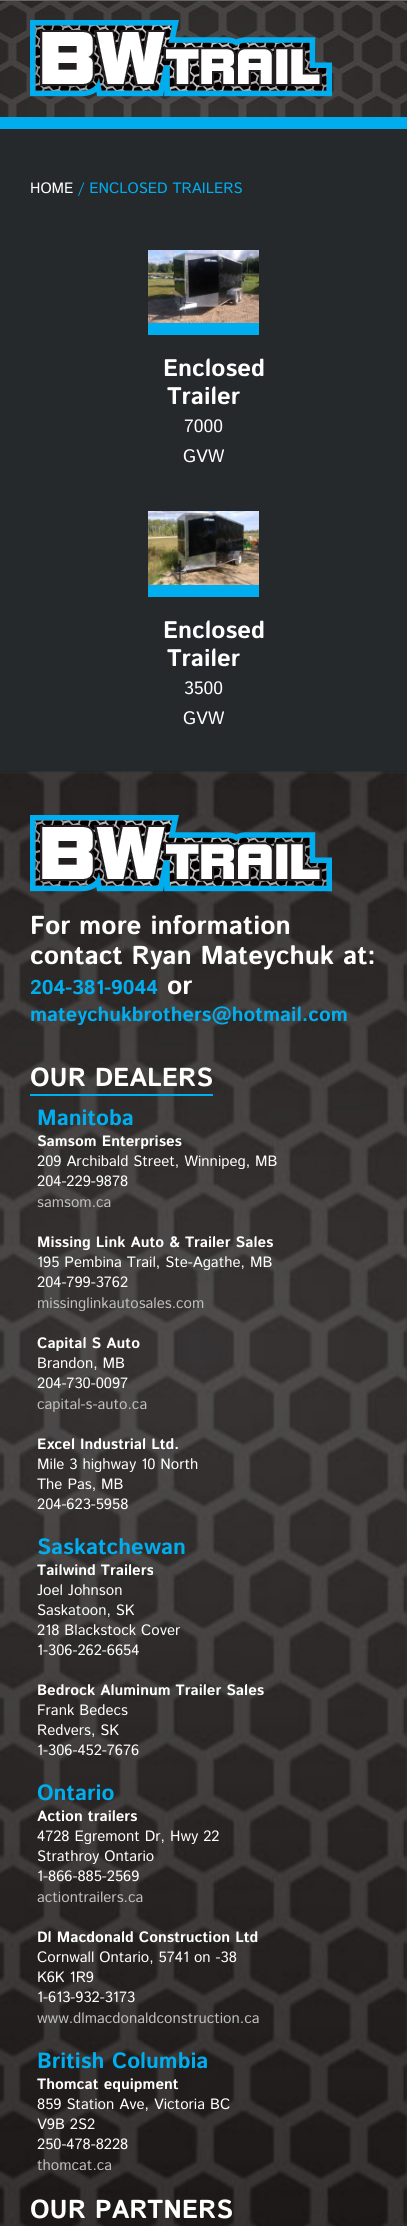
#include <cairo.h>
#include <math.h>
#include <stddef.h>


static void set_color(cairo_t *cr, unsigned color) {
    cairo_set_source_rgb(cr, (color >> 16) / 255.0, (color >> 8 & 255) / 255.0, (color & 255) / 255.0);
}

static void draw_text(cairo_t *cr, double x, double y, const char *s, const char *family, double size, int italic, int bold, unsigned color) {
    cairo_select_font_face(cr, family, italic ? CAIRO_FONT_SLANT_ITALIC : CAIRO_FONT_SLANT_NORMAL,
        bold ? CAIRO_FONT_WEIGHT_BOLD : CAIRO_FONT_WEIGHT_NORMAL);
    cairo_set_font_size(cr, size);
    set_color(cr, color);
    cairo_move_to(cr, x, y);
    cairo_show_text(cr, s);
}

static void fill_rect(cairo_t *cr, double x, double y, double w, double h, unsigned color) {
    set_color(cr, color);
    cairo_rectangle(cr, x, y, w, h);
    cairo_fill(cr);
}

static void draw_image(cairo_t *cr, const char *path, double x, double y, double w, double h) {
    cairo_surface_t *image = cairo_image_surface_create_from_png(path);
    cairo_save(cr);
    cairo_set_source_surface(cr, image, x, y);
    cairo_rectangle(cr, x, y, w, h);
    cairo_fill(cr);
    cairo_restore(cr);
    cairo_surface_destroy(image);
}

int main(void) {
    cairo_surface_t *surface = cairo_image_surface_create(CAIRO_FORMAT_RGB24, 407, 2226);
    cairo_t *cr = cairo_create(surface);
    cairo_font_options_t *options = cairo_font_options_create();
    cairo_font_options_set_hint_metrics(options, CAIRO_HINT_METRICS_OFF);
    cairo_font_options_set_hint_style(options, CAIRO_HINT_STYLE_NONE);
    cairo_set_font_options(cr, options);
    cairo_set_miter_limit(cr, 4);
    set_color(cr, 0x25292B);
    cairo_paint(cr);
    fill_rect(cr, 0, 117, 407, 12, 0x00AEEF);
    draw_image(cr, "assets/img1.png", 0, 0, 407, 117);
    draw_image(cr, "assets/img2.png", 30, 20, 302, 77);
    draw_text(cr, 30, 193, "HOME", "Istok Web", 15, 0, 0, 0xFFFFFF);
    draw_text(cr, 78, 193, "/ ENCLOSED TRAILERS", "Istok Web", 15, 0, 0, 0x00AEEF);
    fill_rect(cr, 148, 323, 111, 12, 0x00AEEF);
    draw_image(cr, "assets/img3.png", 148, 250, 111, 73);
    draw_text(cr, 163, 376, "Enclosed", "Istok Web", 24, 0, 1, 0xFFFFFF);
    draw_text(cr, 167, 404, "Trailer", "Istok Web", 24, 0, 1, 0xFFFFFF);
    draw_text(cr, 184, 432, "7000", "Istok Web", 18, 0, 0, 0xFFFFFF);
    draw_text(cr, 183, 462, "GVW", "Istok Web", 18, 0, 0, 0xFFFFFF);
    fill_rect(cr, 148, 585, 111, 12, 0x00AEEF);
    draw_image(cr, "assets/img4.png", 148, 511, 111, 74);
    draw_text(cr, 163, 638, "Enclosed", "Istok Web", 24, 0, 1, 0xFFFFFF);
    draw_text(cr, 167, 666, "Trailer", "Istok Web", 24, 0, 1, 0xFFFFFF);
    draw_text(cr, 184, 694, "3500", "Istok Web", 18, 0, 0, 0xFFFFFF);
    draw_text(cr, 183, 724, "GVW", "Istok Web", 18, 0, 0, 0xFFFFFF);
    fill_rect(cr, 0, 772, 407, 1454, 0x363839);
    draw_image(cr, "assets/img5.png", 0, 771, 407, 1455);
    draw_image(cr, "assets/img6.png", 30, 815, 302, 77);
    draw_text(cr, 30, 934, "For more information", "Istok Web", 26, 0, 1, 0xFFFFFF);
    draw_text(cr, 30, 964, "contact Ryan Mateychuk at:", "Istok Web", 26, 0, 1, 0xFFFFFF);
    draw_text(cr, 30, 994, "204-381-9044", "Istok Web", 20, 0, 1, 0x00AEEF);
    draw_text(cr, 167, 994, "or", "Istok Web", 26, 0, 1, 0xFFFFFF);
    draw_text(cr, 30, 1021, "mateychukbrothers@hotmail.com", "Istok Web", 20, 0, 1, 0x00AEEF);
    fill_rect(cr, 30, 1094, 183, 2, 0x00AEEF);
    draw_text(cr, 30, 1086, "OUR DEALERS", "Istok Web", 26, 0, 1, 0xFFFFFF);
    draw_text(cr, 37, 1125, "Manitoba", "Istok Web", 22, 0, 1, 0x00AEEF);
    draw_text(cr, 37, 1146, "Samsom Enterprises", "Istok Web", 15, 0, 1, 0xFFFFFF);
    draw_text(cr, 37, 1166, "209 Archibald Street, Winnipeg, MB", "Istok Web", 15, 0, 0, 0xFFFFFF);
    draw_text(cr, 37, 1186, "204-229-9878", "Istok Web", 15, 0, 0, 0xFFFFFF);
    draw_text(cr, 37, 1207, "samsom.ca", "Istok Web", 15, 0, 0, 0xBFBFBF);
    draw_text(cr, 37, 1247, "Missing Link Auto & Trailer Sales", "Istok Web", 15, 0, 1, 0xFFFFFF);
    draw_text(cr, 37, 1267, "195 Pembina Trail, Ste-Agathe, MB", "Istok Web", 15, 0, 0, 0xFFFFFF);
    draw_text(cr, 37, 1287, "204-799-3762", "Istok Web", 15, 0, 0, 0xFFFFFF);
    draw_text(cr, 37, 1308, "missinglinkautosales.com", "Istok Web", 15, 0, 0, 0xBFBFBF);
    draw_text(cr, 37, 1348, "Capital S Auto", "Istok Web", 15, 0, 1, 0xFFFFFF);
    draw_text(cr, 37, 1368, "Brandon, MB", "Istok Web", 15, 0, 0, 0xFFFFFF);
    draw_text(cr, 37, 1388, "204-730-0097", "Istok Web", 15, 0, 0, 0xFFFFFF);
    draw_text(cr, 37, 1409, "capital-s-auto.ca", "Istok Web", 15, 0, 0, 0xBFBFBF);
    draw_text(cr, 37, 1449, "Excel Industrial Ltd.", "Istok Web", 15, 0, 1, 0xFFFFFF);
    draw_text(cr, 37, 1469, "Mile 3 highway 10 North", "Istok Web", 15, 0, 0, 0xFFFFFF);
    draw_text(cr, 37, 1489, "The Pas, MB", "Istok Web", 15, 0, 0, 0xFFFFFF);
    draw_text(cr, 37, 1509, "204-623-5958", "Istok Web", 15, 0, 0, 0xFFFFFF);
    draw_text(cr, 37, 1554, "Saskatchewan", "Istok Web", 22, 0, 1, 0x00AEEF);
    draw_text(cr, 37, 1575, "Tailwind Trailers", "Istok Web", 15, 0, 1, 0xFFFFFF);
    draw_text(cr, 37, 1595, "Joel Johnson", "Istok Web", 15, 0, 0, 0xFFFFFF);
    draw_text(cr, 37, 1615, "Saskatoon, SK", "Istok Web", 15, 0, 0, 0xFFFFFF);
    draw_text(cr, 37, 1635, "218 Blackstock Cover", "Istok Web", 15, 0, 0, 0xFFFFFF);
    draw_text(cr, 37, 1655, "1-306-262-6654", "Istok Web", 15, 0, 0, 0xFFFFFF);
    draw_text(cr, 37, 1695, "Bedrock Aluminum Trailer Sales", "Istok Web", 15, 0, 1, 0xFFFFFF);
    draw_text(cr, 37, 1715, "Frank Bedecs", "Istok Web", 15, 0, 0, 0xFFFFFF);
    draw_text(cr, 37, 1735, "Redvers, SK", "Istok Web", 15, 0, 0, 0xFFFFFF);
    draw_text(cr, 37, 1755, "1-306-452-7676", "Istok Web", 15, 0, 0, 0xFFFFFF);
    draw_text(cr, 37, 1800, "Ontario", "Istok Web", 22, 0, 1, 0x00AEEF);
    draw_text(cr, 37, 1821, "Action trailers", "Istok Web", 15, 0, 1, 0xFFFFFF);
    draw_text(cr, 37, 1841, "4728 Egremont Dr, Hwy 22", "Istok Web", 15, 0, 0, 0xFFFFFF);
    draw_text(cr, 37, 1861, "Strathroy Ontario", "Istok Web", 15, 0, 0, 0xFFFFFF);
    draw_text(cr, 37, 1881, "1-866-885-2569", "Istok Web", 15, 0, 0, 0xFFFFFF);
    draw_text(cr, 37, 1902, "actiontrailers.ca", "Istok Web", 15, 0, 0, 0xBFBFBF);
    draw_text(cr, 37, 1942, "Dl Macdonald Construction Ltd", "Istok Web", 15, 0, 1, 0xFFFFFF);
    draw_text(cr, 37, 1962, "Cornwall Ontario, 5741 on -38", "Istok Web", 15, 0, 0, 0xFFFFFF);
    draw_text(cr, 37, 1982, "K6K 1R9", "Istok Web", 15, 0, 0, 0xFFFFFF);
    draw_text(cr, 37, 2002, "1-613-932-3173", "Istok Web", 15, 0, 0, 0xFFFFFF);
    draw_text(cr, 37, 2023, "www.dlmacdonaldconstruction.ca", "Istok Web", 15, 0, 0, 0xBFBFBF);
    draw_text(cr, 37, 2068, "British Columbia", "Istok Web", 22, 0, 1, 0x00AEEF);
    draw_text(cr, 37, 2089, "Thomcat equipment", "Istok Web", 15, 0, 1, 0xFFFFFF);
    draw_text(cr, 37, 2109, "859 Station Ave, Victoria BC", "Istok Web", 15, 0, 0, 0xFFFFFF);
    draw_text(cr, 37, 2129, "V9B 2S2", "Istok Web", 15, 0, 0, 0xFFFFFF);
    draw_text(cr, 37, 2149, "250-478-8228", "Istok Web", 15, 0, 0, 0xFFFFFF);
    draw_text(cr, 37, 2170, "thomcat.ca", "Istok Web", 15, 0, 0, 0xBFBFBF);
    draw_text(cr, 30, 2218, "OUR PARTNERS", "Istok Web", 26, 0, 1, 0xFFFFFF);
    cairo_surface_write_to_png(surface, "output.png");
    cairo_font_options_destroy(options);
    cairo_destroy(cr);
    cairo_surface_destroy(surface);
    return 0;
}
